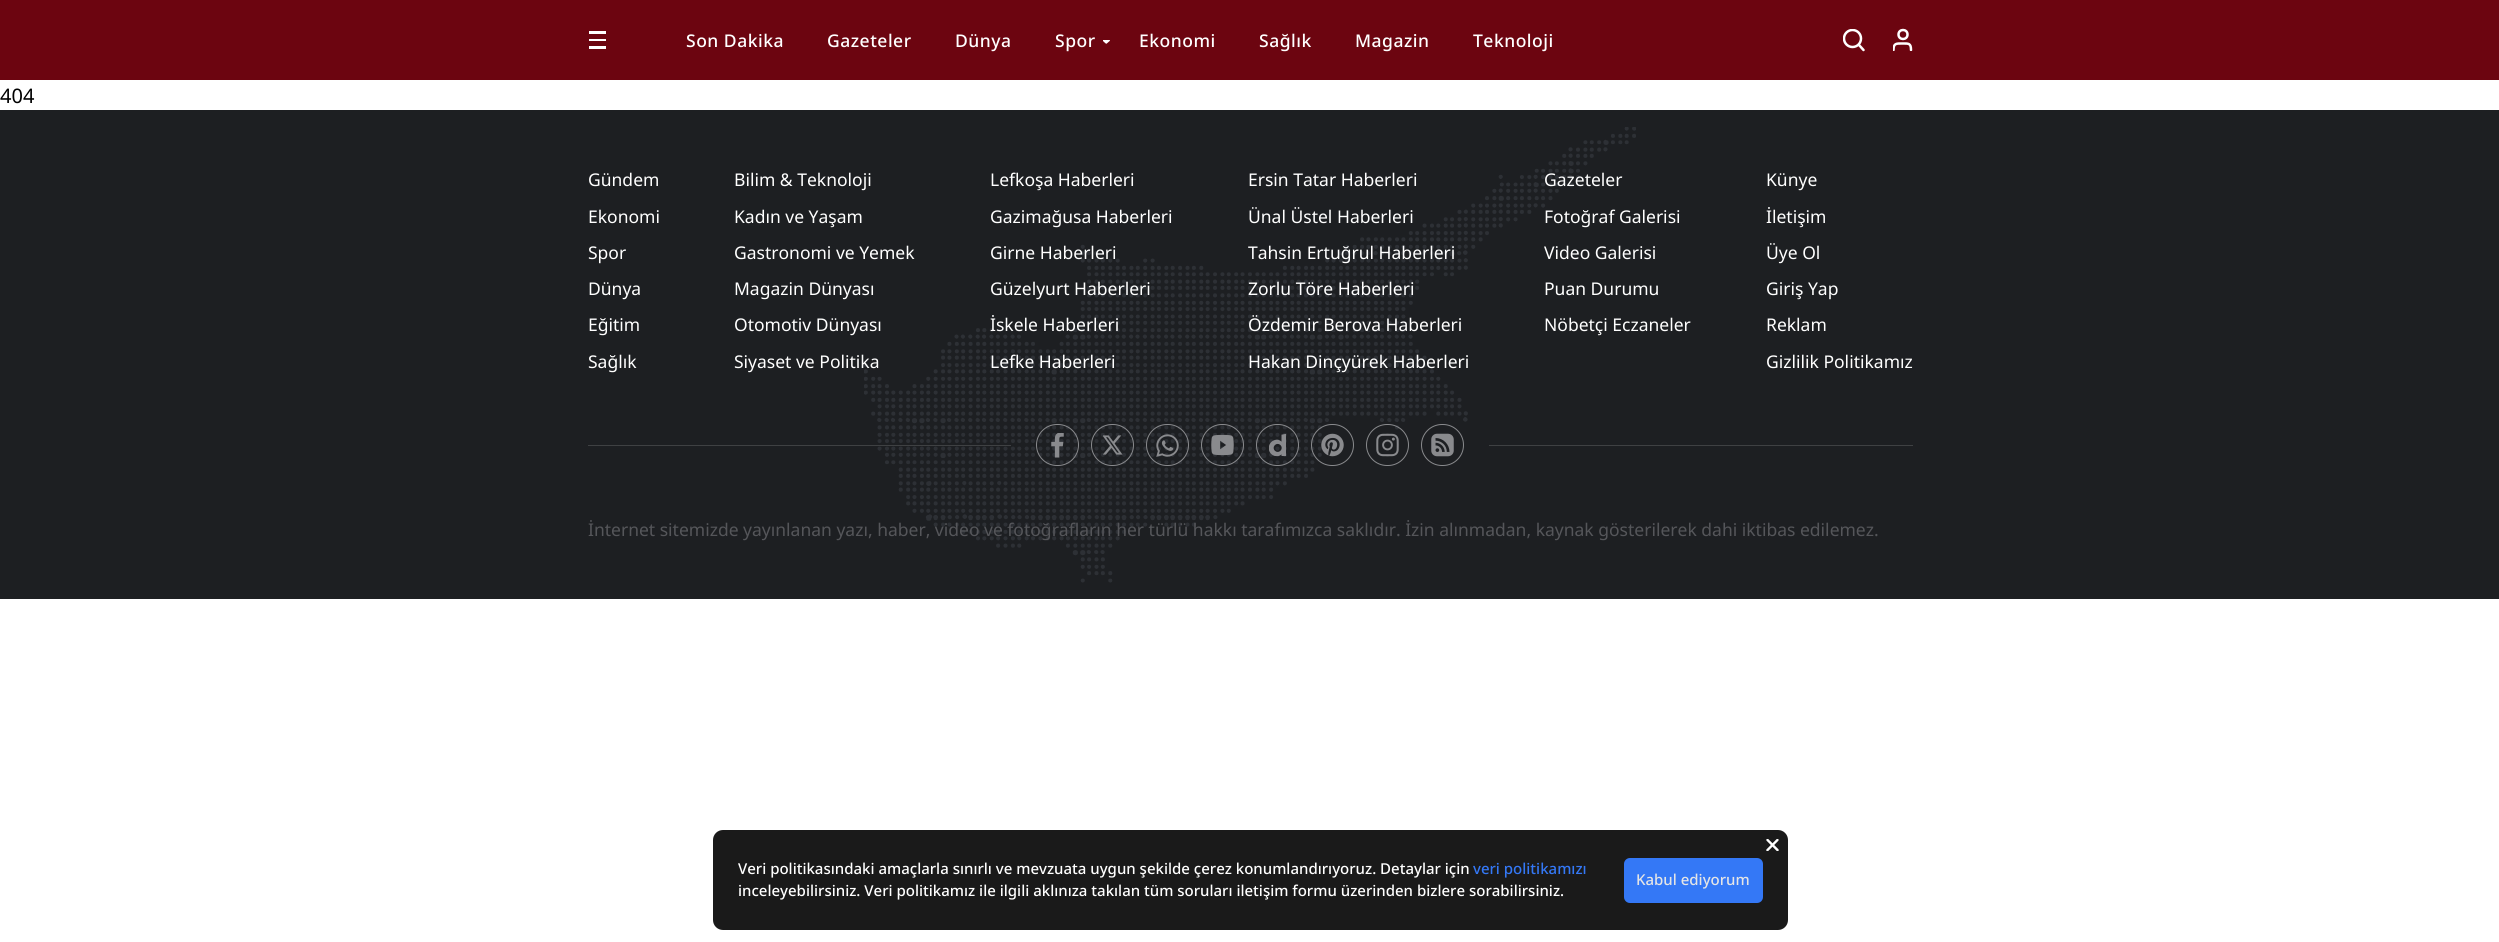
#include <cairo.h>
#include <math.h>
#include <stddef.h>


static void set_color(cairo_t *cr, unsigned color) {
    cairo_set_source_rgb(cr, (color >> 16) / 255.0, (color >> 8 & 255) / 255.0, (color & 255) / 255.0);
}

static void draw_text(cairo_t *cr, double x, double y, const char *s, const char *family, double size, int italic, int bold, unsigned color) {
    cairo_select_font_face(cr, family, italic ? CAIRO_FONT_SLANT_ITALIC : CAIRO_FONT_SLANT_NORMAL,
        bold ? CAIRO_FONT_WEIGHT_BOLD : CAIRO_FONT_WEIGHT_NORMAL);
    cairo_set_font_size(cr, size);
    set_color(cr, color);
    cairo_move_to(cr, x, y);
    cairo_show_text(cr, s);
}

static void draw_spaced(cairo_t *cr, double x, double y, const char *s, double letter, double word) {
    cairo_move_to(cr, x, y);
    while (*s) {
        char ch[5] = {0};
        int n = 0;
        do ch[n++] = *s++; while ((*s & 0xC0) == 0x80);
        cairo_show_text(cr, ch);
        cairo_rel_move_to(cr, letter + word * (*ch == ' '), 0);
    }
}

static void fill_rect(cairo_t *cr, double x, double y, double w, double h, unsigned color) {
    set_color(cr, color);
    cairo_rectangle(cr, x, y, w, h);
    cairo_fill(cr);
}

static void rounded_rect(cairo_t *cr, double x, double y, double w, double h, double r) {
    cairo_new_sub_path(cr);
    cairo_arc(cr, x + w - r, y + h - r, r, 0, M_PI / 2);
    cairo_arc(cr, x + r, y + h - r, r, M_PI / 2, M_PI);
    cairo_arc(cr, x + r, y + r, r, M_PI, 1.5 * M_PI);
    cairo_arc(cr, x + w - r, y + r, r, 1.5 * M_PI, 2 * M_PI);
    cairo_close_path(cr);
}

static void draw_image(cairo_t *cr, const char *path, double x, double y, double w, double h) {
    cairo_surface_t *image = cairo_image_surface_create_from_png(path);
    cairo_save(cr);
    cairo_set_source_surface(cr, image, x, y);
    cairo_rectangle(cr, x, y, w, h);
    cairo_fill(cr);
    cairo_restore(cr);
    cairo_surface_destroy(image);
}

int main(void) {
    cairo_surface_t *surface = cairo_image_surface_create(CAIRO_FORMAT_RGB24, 2499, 942);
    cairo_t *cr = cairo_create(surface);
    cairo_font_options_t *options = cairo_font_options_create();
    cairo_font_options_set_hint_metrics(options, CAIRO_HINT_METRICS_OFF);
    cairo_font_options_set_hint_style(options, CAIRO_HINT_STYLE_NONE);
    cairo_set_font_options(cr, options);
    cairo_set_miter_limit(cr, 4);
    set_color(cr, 0xFFFFFF);
    cairo_paint(cr);
    fill_rect(cr, 0, 0, 2499, 80, 0x6C0510);
    fill_rect(cr, 589, 39, 17, 2, 0xFFFFFF);
    fill_rect(cr, 589, 31, 17, 3, 0xFFFFFF);
    fill_rect(cr, 589, 46, 17, 3, 0xFFFFFF);
    cairo_select_font_face(cr, "Noto Sans Medium", CAIRO_FONT_SLANT_NORMAL, CAIRO_FONT_WEIGHT_NORMAL);
    cairo_set_font_size(cr, 17.5);
    draw_spaced(cr, 686, 47, "Son Dakika", 0.5, 0);
    draw_spaced(cr, 827, 47, "Gazeteler", 0.5, 0);
    draw_spaced(cr, 955, 47, "Dünya", 0.5, 0);
    draw_spaced(cr, 1055, 47, "Spor", 0.5, 0);
    draw_image(cr, "assets/img1.png", 1103, 40, 7, 4);
    draw_spaced(cr, 1139, 47, "Ekonomi", 0.5, 0);
    draw_spaced(cr, 1259, 47, "Sağlık", 0.5, 0);
    draw_spaced(cr, 1355, 47, "Magazin", 0.5, 0);
    draw_spaced(cr, 1473, 47, "Teknoloji", 0.5, 0);
    cairo_save(cr);
    cairo_rectangle(cr, 1843, 29, 22, 22);
    cairo_clip(cr);
    cairo_arc(cr, 1852.5, 38.5, 8.5, 0, 2 * M_PI);
    cairo_set_line_width(cr, 2.5);
    cairo_stroke(cr);
    cairo_restore(cr);
    cairo_new_path(cr);
    cairo_move_to(cr, 1863.5, 50);
    cairo_line_to(cr, 1859, 45);
    cairo_set_line_width(cr, 2.5);
    cairo_set_line_cap(cr, CAIRO_LINE_CAP_ROUND);
    cairo_set_line_join(cr, CAIRO_LINE_JOIN_ROUND);
    cairo_stroke(cr);
    cairo_save(cr);
    cairo_rectangle(cr, 1893, 29, 20, 22);
    cairo_clip(cr);
    cairo_new_path(cr);
    cairo_move_to(cr, 1911, 50);
    cairo_curve_to(cr, 1911, 43, 1908.5, 43.5, 1902.5, 43.5);
    cairo_curve_to(cr, 1896.5, 43.5, 1893.5, 43, 1893.5, 50);
    cairo_stroke(cr);
    cairo_restore(cr);
    cairo_arc(cr, 1903, 34.5, 4.5, 0, 2 * M_PI);
    cairo_set_line_cap(cr, CAIRO_LINE_CAP_BUTT);
    cairo_set_line_join(cr, CAIRO_LINE_JOIN_MITER);
    cairo_stroke(cr);
    draw_text(cr, 0, 103, "404", "Noto Sans", 20, 0, 0, 0x000000);
    fill_rect(cr, 0, 110, 2499, 489, 0x1D1F22);
    draw_image(cr, "assets/img2.png", 864, 127, 772, 456);
    draw_text(cr, 588, 186, "Gündem", "Noto Sans", 17.5, 0, 0, 0xFFFFFF);
    draw_text(cr, 588, 223, "Ekonomi", "Noto Sans", 17.5, 0, 0, 0xFFFFFF);
    draw_text(cr, 588, 259, "Spor", "Noto Sans", 17.5, 0, 0, 0xFFFFFF);
    draw_text(cr, 588, 295, "Dünya", "Noto Sans", 17.5, 0, 0, 0xFFFFFF);
    draw_text(cr, 588, 331, "Eğitim", "Noto Sans", 17.5, 0, 0, 0xFFFFFF);
    draw_text(cr, 588, 368, "Sağlık", "Noto Sans", 17.5, 0, 0, 0xFFFFFF);
    draw_text(cr, 734, 186, "Bilim & Teknoloji", "Noto Sans", 17.5, 0, 0, 0xFFFFFF);
    draw_text(cr, 734, 223, "Kadın ve Yaşam", "Noto Sans", 17.5, 0, 0, 0xFFFFFF);
    draw_text(cr, 734, 259, "Gastronomi ve Yemek", "Noto Sans", 17.5, 0, 0, 0xFFFFFF);
    draw_text(cr, 734, 295, "Magazin Dünyası", "Noto Sans", 17.5, 0, 0, 0xFFFFFF);
    draw_text(cr, 734, 331, "Otomotiv Dünyası", "Noto Sans", 17.5, 0, 0, 0xFFFFFF);
    draw_text(cr, 734, 368, "Siyaset ve Politika", "Noto Sans", 17.5, 0, 0, 0xFFFFFF);
    draw_text(cr, 990, 186, "Lefkoşa Haberleri", "Noto Sans", 17.5, 0, 0, 0xFFFFFF);
    draw_text(cr, 990, 223, "Gazimağusa Haberleri", "Noto Sans", 17.5, 0, 0, 0xFFFFFF);
    draw_text(cr, 990, 259, "Girne Haberleri", "Noto Sans", 17.5, 0, 0, 0xFFFFFF);
    draw_text(cr, 990, 295, "Güzelyurt Haberleri", "Noto Sans", 17.5, 0, 0, 0xFFFFFF);
    draw_text(cr, 990, 331, "İskele Haberleri", "Noto Sans", 17.5, 0, 0, 0xFFFFFF);
    draw_text(cr, 990, 368, "Lefke Haberleri", "Noto Sans", 17.5, 0, 0, 0xFFFFFF);
    draw_text(cr, 1248, 186, "Ersin Tatar Haberleri", "Noto Sans", 17.5, 0, 0, 0xFFFFFF);
    draw_text(cr, 1248, 223, "Ünal Üstel Haberleri", "Noto Sans", 17.5, 0, 0, 0xFFFFFF);
    draw_text(cr, 1248, 259, "Tahsin Ertuğrul Haberleri", "Noto Sans", 17.5, 0, 0, 0xFFFFFF);
    draw_text(cr, 1248, 295, "Zorlu Töre Haberleri", "Noto Sans", 17.5, 0, 0, 0xFFFFFF);
    draw_text(cr, 1248, 331, "Özdemir Berova Haberleri", "Noto Sans", 17.5, 0, 0, 0xFFFFFF);
    draw_text(cr, 1248, 368, "Hakan Dinçyürek Haberleri", "Noto Sans", 17.5, 0, 0, 0xFFFFFF);
    draw_text(cr, 1544, 186, "Gazeteler", "Noto Sans", 17.5, 0, 0, 0xFFFFFF);
    draw_text(cr, 1544, 223, "Fotoğraf Galerisi", "Noto Sans", 17.5, 0, 0, 0xFFFFFF);
    draw_text(cr, 1544, 259, "Video Galerisi", "Noto Sans", 17.5, 0, 0, 0xFFFFFF);
    draw_text(cr, 1544, 295, "Puan Durumu", "Noto Sans", 17.5, 0, 0, 0xFFFFFF);
    draw_text(cr, 1544, 331, "Nöbetçi Eczaneler", "Noto Sans", 17.5, 0, 0, 0xFFFFFF);
    draw_text(cr, 1766, 186, "Künye", "Noto Sans", 17.5, 0, 0, 0xFFFFFF);
    draw_text(cr, 1766, 223, "İletişim", "Noto Sans", 17.5, 0, 0, 0xFFFFFF);
    draw_text(cr, 1766, 259, "Üye Ol", "Noto Sans", 17.5, 0, 0, 0xFFFFFF);
    draw_text(cr, 1766, 295, "Giriş Yap", "Noto Sans", 17.5, 0, 0, 0xFFFFFF);
    draw_text(cr, 1766, 331, "Reklam", "Noto Sans", 17.5, 0, 0, 0xFFFFFF);
    draw_text(cr, 1766, 368, "Gizlilik Politikamız", "Noto Sans", 17.5, 0, 0, 0xFFFFFF);
    fill_rect(cr, 588, 445, 423, 1, 0x3F4143);
    rounded_rect(cr, 1036.5, 424.5, 42, 41, 20.5);
    set_color(cr, 0x898A8D);
    cairo_set_line_width(cr, 1);
    cairo_stroke(cr);
    draw_image(cr, "assets/img3.png", 1051, 433, 13, 25);
    rounded_rect(cr, 1091.5, 424.5, 42, 41, 20.5);
    cairo_stroke(cr);
    draw_image(cr, "assets/img4.png", 1103, 435, 20, 20);
    rounded_rect(cr, 1146.5, 424.5, 42, 41, 20.5);
    cairo_stroke(cr);
    draw_image(cr, "assets/img5.png", 1156, 434, 23, 23);
    rounded_rect(cr, 1201.5, 424.5, 42, 41, 20.5);
    cairo_stroke(cr);
    draw_image(cr, "assets/img6.png", 1211, 434, 23, 22);
    rounded_rect(cr, 1256.5, 424.5, 42, 41, 20.5);
    cairo_stroke(cr);
    draw_image(cr, "assets/img7.png", 1269, 434, 17, 22);
    rounded_rect(cr, 1311.5, 424.5, 42, 41, 20.5);
    cairo_stroke(cr);
    draw_image(cr, "assets/img8.png", 1321, 433, 23, 24);
    rounded_rect(cr, 1366.5, 424.5, 42, 41, 20.5);
    cairo_stroke(cr);
    draw_image(cr, "assets/img9.png", 1376, 433, 23, 24);
    rounded_rect(cr, 1421.5, 424.5, 42, 41, 20.5);
    cairo_stroke(cr);
    draw_image(cr, "assets/img10.png", 1431, 433, 23, 24);
    fill_rect(cr, 1489, 445, 424, 1, 0x3F4143);
    draw_text(cr, 588, 536, "İnternet sitemizde yayınlanan yazı, haber, video ve fotoğrafların her türlü hakkı tarafımızca saklıdır. İzin alınmadan, kaynak gösterilerek dahi iktibas edilemez.", "Noto Sans", 17.5, 0, 0, 0x55565A);
    set_color(cr, 0x1A1A1A);
    rounded_rect(cr, 713, 830, 1075, 100, 10);
    cairo_fill(cr);
    draw_image(cr, "assets/img11.png", 1766, 839, 13, 12);
    draw_text(cr, 738, 874, "Veri politikasındaki amaçlarla sınırlı ve mevzuata uygun şekilde çerez konumlandırıyoruz. Detaylar için", "Noto Sans Medium", 15, 0, 0, 0xFFFFFF);
    draw_text(cr, 1473, 874, "veri politikamızı", "Noto Sans Medium", 15, 0, 0, 0x3478F6);
    draw_text(cr, 738, 896, "inceleyebilirsiniz. Veri politikamız ile ilgili aklınıza takılan tüm soruları iletişim formu üzerinden bizlere sorabilirsiniz.", "Noto Sans Medium", 15, 0, 0, 0xFFFFFF);
    set_color(cr, 0x3478F6);
    rounded_rect(cr, 1624, 858, 139, 45, 6);
    cairo_fill(cr);
    draw_text(cr, 1636, 885, "Kabul ediyorum", "Noto Sans Medium", 15, 0, 0, 0xE5E5E5);
    cairo_surface_write_to_png(surface, "output.png");
    cairo_font_options_destroy(options);
    cairo_destroy(cr);
    cairo_surface_destroy(surface);
    return 0;
}
